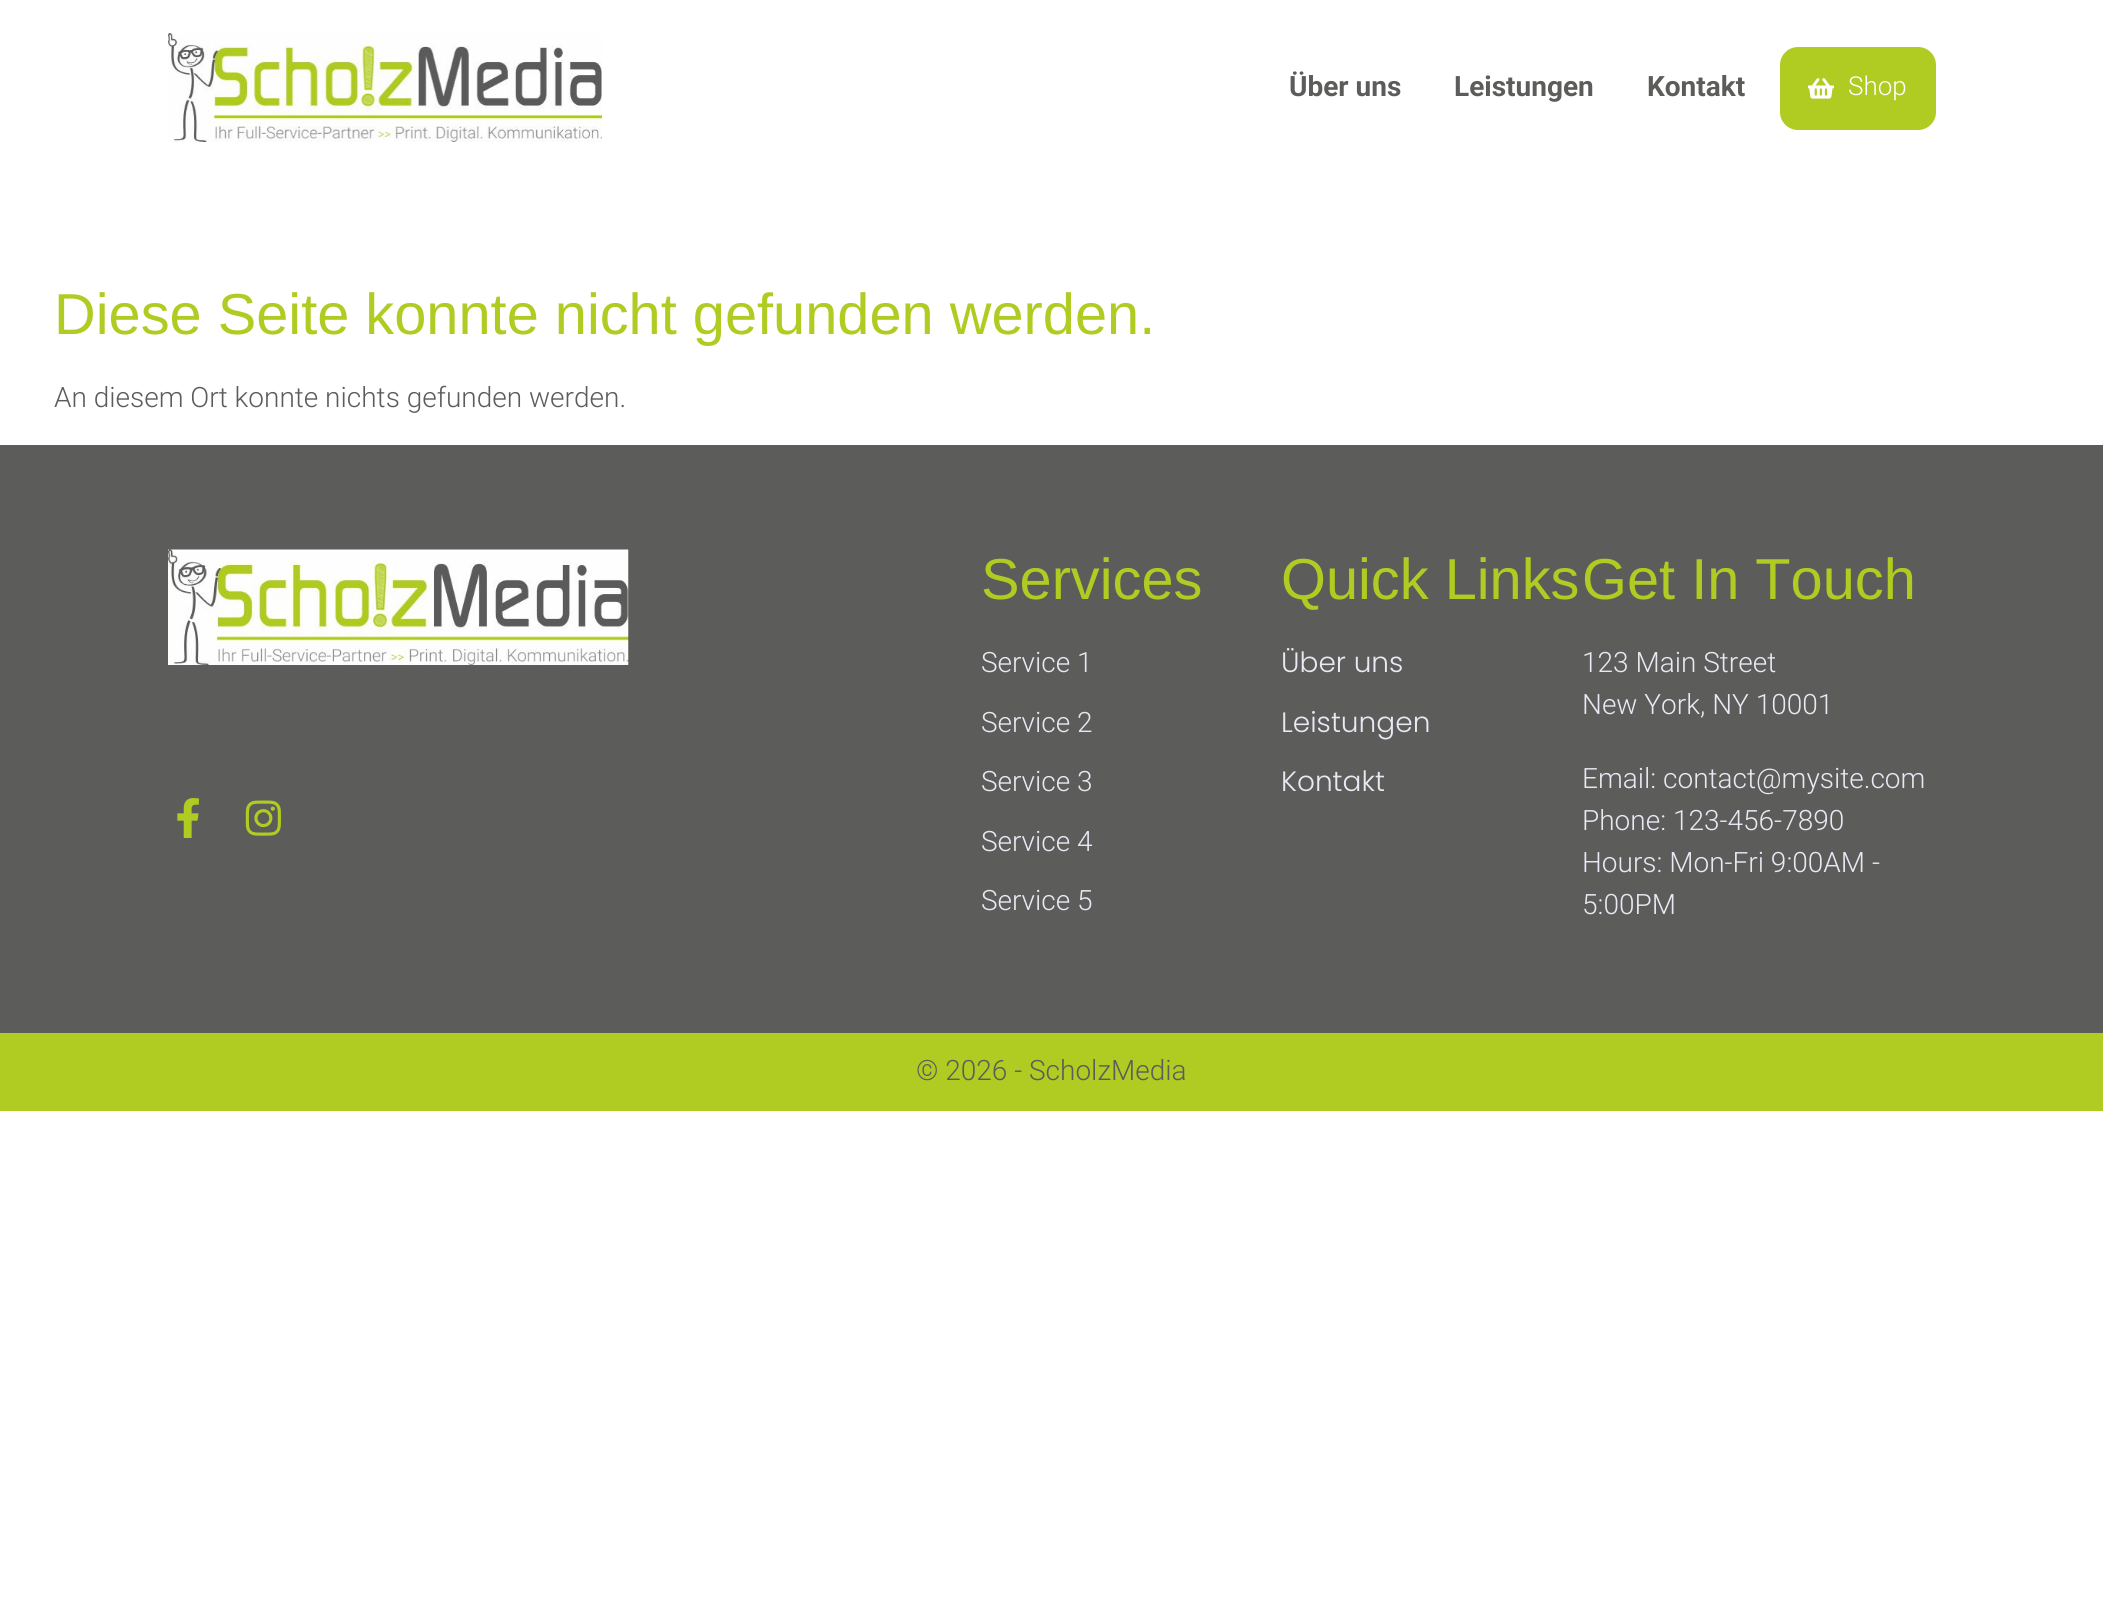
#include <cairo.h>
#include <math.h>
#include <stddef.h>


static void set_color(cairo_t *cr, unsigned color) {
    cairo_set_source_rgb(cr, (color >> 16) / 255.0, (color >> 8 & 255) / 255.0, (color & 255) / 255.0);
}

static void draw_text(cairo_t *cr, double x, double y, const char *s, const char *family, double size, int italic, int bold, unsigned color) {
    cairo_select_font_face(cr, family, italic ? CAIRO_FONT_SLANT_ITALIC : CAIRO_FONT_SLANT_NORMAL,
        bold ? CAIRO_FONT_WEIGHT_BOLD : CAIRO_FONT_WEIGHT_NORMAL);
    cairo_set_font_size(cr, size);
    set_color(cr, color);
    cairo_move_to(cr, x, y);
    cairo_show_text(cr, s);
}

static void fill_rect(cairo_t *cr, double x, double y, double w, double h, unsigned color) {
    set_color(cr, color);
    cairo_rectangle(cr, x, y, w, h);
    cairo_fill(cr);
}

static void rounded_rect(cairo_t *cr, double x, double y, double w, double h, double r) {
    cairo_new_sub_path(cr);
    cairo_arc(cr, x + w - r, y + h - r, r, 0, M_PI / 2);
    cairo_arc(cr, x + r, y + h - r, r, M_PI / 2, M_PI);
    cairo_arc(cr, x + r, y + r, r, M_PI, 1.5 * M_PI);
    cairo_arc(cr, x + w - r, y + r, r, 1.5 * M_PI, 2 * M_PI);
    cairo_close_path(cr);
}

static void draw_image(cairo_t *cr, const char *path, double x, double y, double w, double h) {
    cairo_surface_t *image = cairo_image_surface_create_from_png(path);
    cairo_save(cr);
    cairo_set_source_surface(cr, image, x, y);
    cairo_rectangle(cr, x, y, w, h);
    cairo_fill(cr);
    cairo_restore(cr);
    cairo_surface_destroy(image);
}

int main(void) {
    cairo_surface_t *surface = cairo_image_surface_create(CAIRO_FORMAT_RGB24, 2103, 1613);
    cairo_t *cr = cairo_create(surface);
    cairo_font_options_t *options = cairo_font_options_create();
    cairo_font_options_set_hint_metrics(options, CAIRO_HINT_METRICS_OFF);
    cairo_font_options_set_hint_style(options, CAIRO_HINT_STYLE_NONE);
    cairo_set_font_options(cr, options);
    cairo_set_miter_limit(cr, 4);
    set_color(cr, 0xFFFFFF);
    cairo_paint(cr);
    draw_image(cr, "assets/img1.png", 168, 33, 434, 109);
    draw_text(cr, 1289, 96, "Über uns", "Roboto", 28, 0, 1, 0x5C5C5B);
    draw_text(cr, 1454, 96, "Leistungen", "Roboto", 28, 0, 1, 0x5C5C5B);
    draw_text(cr, 1647, 96, "Kontakt", "Roboto", 28, 0, 1, 0x5C5C5B);
    set_color(cr, 0xB0CB21);
    rounded_rect(cr, 1780, 47, 156, 83, 18);
    cairo_fill(cr);
    draw_image(cr, "assets/img2.png", 1808, 78, 26, 21);
    draw_text(cr, 1848, 95, "Shop", "Roboto Light", 26, 0, 0, 0xFFFFFF);
    draw_text(cr, 54, 334, "Diese Seite konnte nicht gefunden werden.", "Liberation Sans", 57.75, 0, 0, 0xB0CB21);
    draw_text(cr, 54, 407, "An diesem Ort konnte nichts gefunden werden.", "Roboto Light", 28, 0, 0, 0x5C5C5B);
    fill_rect(cr, 0, 445, 2103, 588, 0x5C5C5B);
    draw_image(cr, "assets/img3.png", 168, 549, 461, 116);
    draw_image(cr, "assets/img4.png", 177, 798, 22, 40);
    draw_image(cr, "assets/img5.png", 245, 800, 36, 36);
    draw_text(cr, 981, 599, "Services", "Liberation Sans", 57.75, 0, 0, 0xB0CB21);
    draw_text(cr, 981, 672, "Service 1", "Roboto Light", 28, 0, 0, 0xE8E9F3);
    draw_text(cr, 981, 732, "Service 2", "Roboto Light", 28, 0, 0, 0xE8E9F3);
    draw_text(cr, 981, 791, "Service 3", "Roboto Light", 28, 0, 0, 0xE8E9F3);
    draw_text(cr, 981, 851, "Service 4", "Roboto Light", 28, 0, 0, 0xE8E9F3);
    draw_text(cr, 981, 910, "Service 5", "Roboto Light", 28, 0, 0, 0xE8E9F3);
    draw_text(cr, 1281, 599, "Quick Links", "Liberation Sans", 57.75, 0, 0, 0xB0CB21);
    draw_text(cr, 1281, 672, "Über uns", "Poppins Light", 28, 0, 0, 0xE8E9F3);
    draw_text(cr, 1281, 732, "Leistungen", "Poppins Light", 28, 0, 0, 0xE8E9F3);
    draw_text(cr, 1281, 791, "Kontakt", "Poppins Light", 28, 0, 0, 0xE8E9F3);
    draw_text(cr, 1582, 599, "Get In Touch", "Liberation Sans", 57.75, 0, 0, 0xB0CB21);
    draw_text(cr, 1582, 672, "123 Main Street", "Roboto Light", 28, 0, 0, 0xE8E9F3);
    draw_text(cr, 1582, 714, "New York, NY 10001", "Roboto Light", 28, 0, 0, 0xE8E9F3);
    draw_text(cr, 1582, 788, "Email: contact@mysite.com", "Roboto Light", 28, 0, 0, 0xE8E9F3);
    draw_text(cr, 1582, 830, "Phone: 123-456-7890", "Roboto Light", 28, 0, 0, 0xE8E9F3);
    draw_text(cr, 1582, 872, "Hours: Mon-Fri 9:00AM -", "Roboto Light", 28, 0, 0, 0xE8E9F3);
    draw_text(cr, 1582, 914, "5:00PM", "Roboto Light", 28, 0, 0, 0xE8E9F3);
    fill_rect(cr, 0, 1033, 2103, 78, 0xB0CB21);
    draw_text(cr, 916, 1080, "© 2026 - ScholzMedia", "Roboto Light", 28, 0, 0, 0x5C5C5B);
    cairo_surface_write_to_png(surface, "output.png");
    cairo_font_options_destroy(options);
    cairo_destroy(cr);
    cairo_surface_destroy(surface);
    return 0;
}
